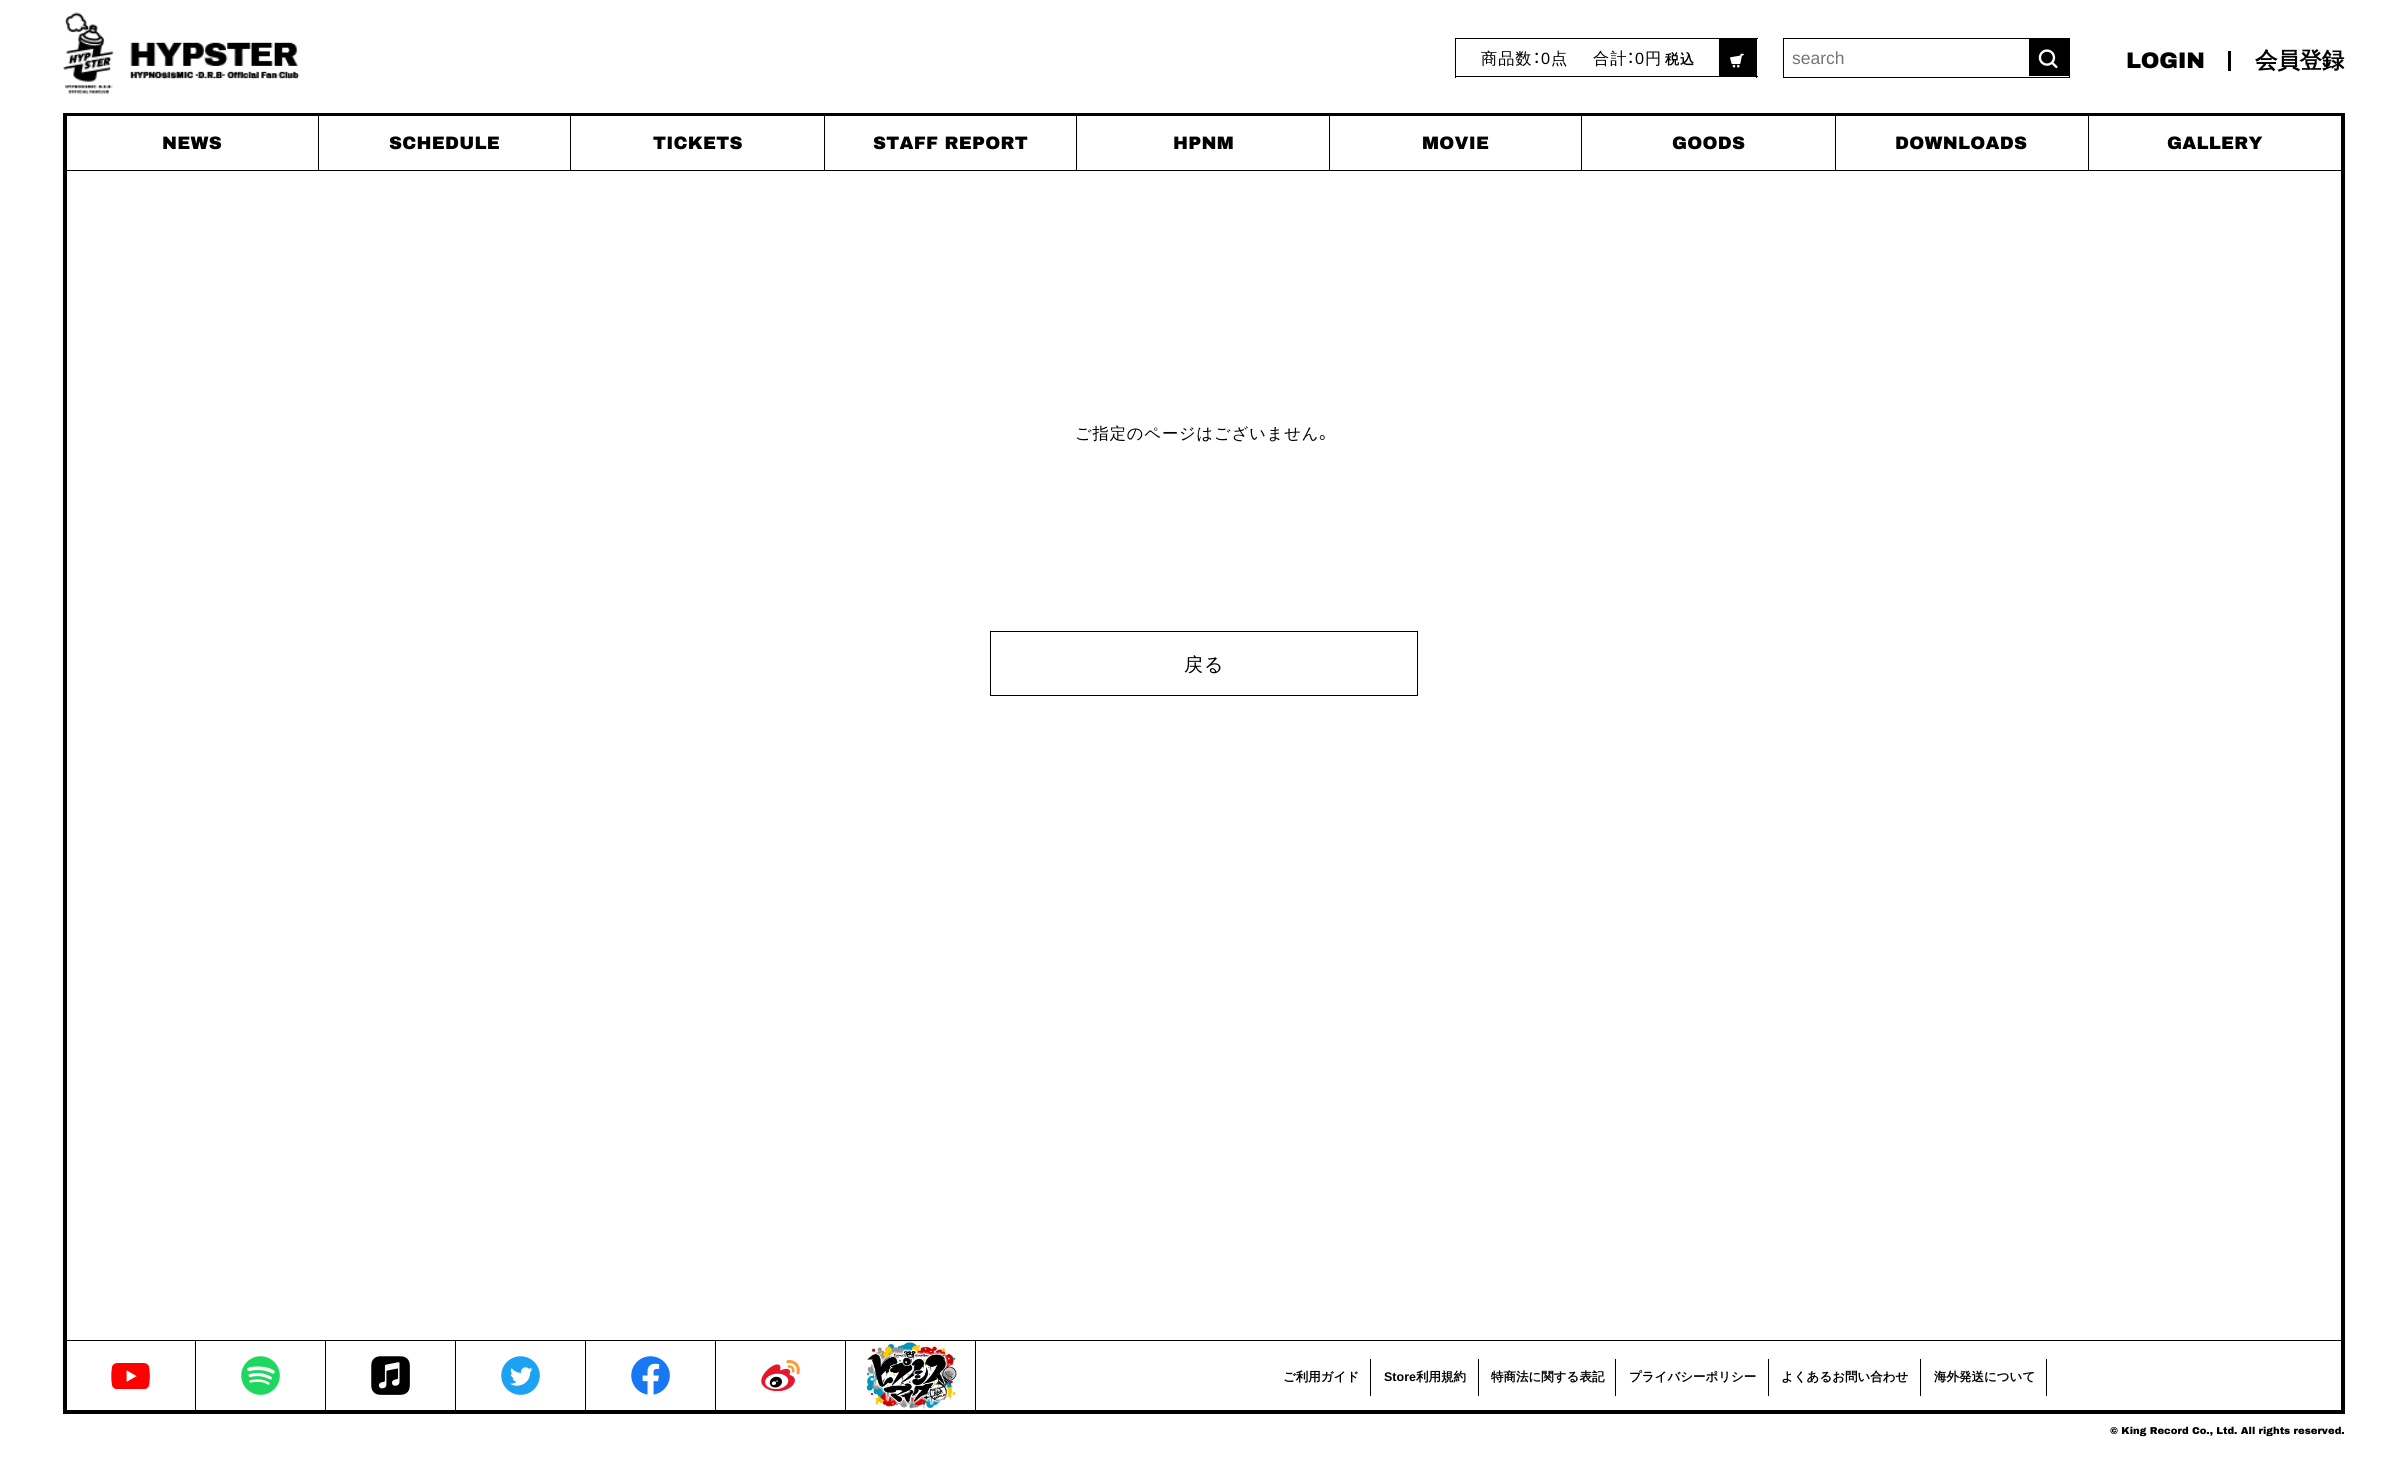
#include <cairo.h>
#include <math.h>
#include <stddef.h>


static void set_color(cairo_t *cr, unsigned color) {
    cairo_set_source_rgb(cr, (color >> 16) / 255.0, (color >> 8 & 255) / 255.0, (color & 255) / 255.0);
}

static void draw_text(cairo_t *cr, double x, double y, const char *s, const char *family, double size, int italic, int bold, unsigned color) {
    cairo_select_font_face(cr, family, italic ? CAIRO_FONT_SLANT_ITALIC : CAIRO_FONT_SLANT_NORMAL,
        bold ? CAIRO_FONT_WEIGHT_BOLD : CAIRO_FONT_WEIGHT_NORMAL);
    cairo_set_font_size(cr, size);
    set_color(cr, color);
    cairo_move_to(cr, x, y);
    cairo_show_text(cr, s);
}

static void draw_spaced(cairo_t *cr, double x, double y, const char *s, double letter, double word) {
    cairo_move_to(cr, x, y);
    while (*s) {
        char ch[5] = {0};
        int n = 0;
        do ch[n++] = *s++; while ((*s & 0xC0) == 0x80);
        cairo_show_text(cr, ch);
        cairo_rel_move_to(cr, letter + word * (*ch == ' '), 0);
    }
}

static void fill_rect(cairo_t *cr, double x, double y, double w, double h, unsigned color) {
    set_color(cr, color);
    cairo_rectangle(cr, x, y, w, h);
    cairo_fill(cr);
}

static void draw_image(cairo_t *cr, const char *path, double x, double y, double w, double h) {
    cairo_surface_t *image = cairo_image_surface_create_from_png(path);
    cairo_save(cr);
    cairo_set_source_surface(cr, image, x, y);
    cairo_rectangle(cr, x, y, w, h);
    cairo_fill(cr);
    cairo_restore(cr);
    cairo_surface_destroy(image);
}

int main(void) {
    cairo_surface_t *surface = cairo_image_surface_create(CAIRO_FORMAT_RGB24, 2407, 1468);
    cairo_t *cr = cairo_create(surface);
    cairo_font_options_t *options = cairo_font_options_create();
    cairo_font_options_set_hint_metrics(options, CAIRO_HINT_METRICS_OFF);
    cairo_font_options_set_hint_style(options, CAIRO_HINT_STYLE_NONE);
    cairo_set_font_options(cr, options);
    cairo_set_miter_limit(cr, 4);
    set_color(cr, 0xFFFFFF);
    cairo_paint(cr);
    draw_image(cr, "assets/img1.png", 63, 12, 237, 82);
    fill_rect(cr, 1455, 38, 303, 1, 0x000000);
    fill_rect(cr, 1756, 38, 1, 40, 0x000000);
    fill_rect(cr, 1455, 76, 303, 1, 0x000000);
    fill_rect(cr, 1455, 38, 1, 40, 0x000000);
    cairo_select_font_face(cr, "WenQuanYi Zen Hei Medium", CAIRO_FONT_SLANT_NORMAL, CAIRO_FONT_WEIGHT_NORMAL);
    cairo_set_font_size(cr, 16.25);
    draw_spaced(cr, 1481, 64, "商品数", 0.9, 0);
    cairo_select_font_face(cr, "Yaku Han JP", CAIRO_FONT_SLANT_NORMAL, CAIRO_FONT_WEIGHT_NORMAL);
    draw_spaced(cr, 1533, 64, "：", 0.9, 0);
    cairo_select_font_face(cr, "Liberation Sans", CAIRO_FONT_SLANT_NORMAL, CAIRO_FONT_WEIGHT_NORMAL);
    draw_spaced(cr, 1541, 64, "0", 0.9, 0);
    cairo_select_font_face(cr, "WenQuanYi Zen Hei Medium", CAIRO_FONT_SLANT_NORMAL, CAIRO_FONT_WEIGHT_NORMAL);
    draw_spaced(cr, 1551, 64, "点", 0.9, 0);
    draw_spaced(cr, 1593, 64, "合計", 0.9, 0);
    cairo_select_font_face(cr, "Yaku Han JP", CAIRO_FONT_SLANT_NORMAL, CAIRO_FONT_WEIGHT_NORMAL);
    draw_spaced(cr, 1627, 64, "：", 0.9, 0);
    cairo_select_font_face(cr, "Liberation Sans", CAIRO_FONT_SLANT_NORMAL, CAIRO_FONT_WEIGHT_NORMAL);
    draw_spaced(cr, 1635, 64, "0", 0.9, 0);
    cairo_select_font_face(cr, "WenQuanYi Zen Hei Medium", CAIRO_FONT_SLANT_NORMAL, CAIRO_FONT_WEIGHT_NORMAL);
    draw_spaced(cr, 1645, 64, "円", 0.9, 0);
    cairo_select_font_face(cr, "WenQuanYi Zen Hei", CAIRO_FONT_SLANT_NORMAL, CAIRO_FONT_WEIGHT_BOLD);
    cairo_set_font_size(cr, 14);
    draw_spaced(cr, 1665, 64, "税込", 0.9, 0);
    fill_rect(cr, 1719, 39, 37, 37, 0x000000);
    draw_image(cr, "assets/img2.png", 1730, 53, 14, 15);
    cairo_rectangle(cr, 1783.5, 38.5, 286, 39);
    cairo_set_line_width(cr, 1);
    cairo_stroke(cr);
    draw_text(cr, 1792, 64, "search", "Liberation Sans", 17.5, 0, 0, 0x757575);
    fill_rect(cr, 2029, 39, 40, 37, 0x000000);
    draw_image(cr, "assets/img3.png", 2038, 49, 20, 20);
    cairo_select_font_face(cr, "Archivo Black Black", CAIRO_FONT_SLANT_NORMAL, CAIRO_FONT_WEIGHT_NORMAL);
    cairo_set_font_size(cr, 22.5);
    draw_spaced(cr, 2126, 68, "LOGIN", -0.25, 0);
    fill_rect(cr, 2228, 51, 3, 20, 0x000000);
    cairo_select_font_face(cr, "WenQuanYi Zen Hei", CAIRO_FONT_SLANT_NORMAL, CAIRO_FONT_WEIGHT_BOLD);
    draw_spaced(cr, 2255, 68, "会員登録", -0.25, 0);
    fill_rect(cr, 2341, 113, 4, 1231, 0x000000);
    fill_rect(cr, 63, 1340, 2282, 1, 0x000000);
    fill_rect(cr, 63, 113, 4, 1231, 0x000000);
    fill_rect(cr, 66, 113, 2275, 3, 0x000000);
    fill_rect(cr, 66, 170, 2275, 1, 0x000000);
    fill_rect(cr, 318, 115, 1, 55, 0x000000);
    cairo_select_font_face(cr, "Archivo Black Black", CAIRO_FONT_SLANT_NORMAL, CAIRO_FONT_WEIGHT_NORMAL);
    cairo_set_font_size(cr, 18);
    draw_spaced(cr, 162, 149, "NEWS", 0.25, 0);
    fill_rect(cr, 570, 115, 1, 55, 0x000000);
    draw_spaced(cr, 389, 149, "SCHEDULE", 0.25, 0);
    fill_rect(cr, 824, 115, 1, 55, 0x000000);
    draw_spaced(cr, 653, 149, "TICKETS", 0.25, 0);
    fill_rect(cr, 1076, 115, 1, 55, 0x000000);
    draw_spaced(cr, 873, 149, "STAFF REPORT", 0.25, 0);
    fill_rect(cr, 1329, 115, 1, 55, 0x000000);
    draw_spaced(cr, 1173, 149, "HPNM", 0.25, 0);
    fill_rect(cr, 1581, 115, 1, 55, 0x000000);
    draw_spaced(cr, 1422, 149, "MOVIE", 0.25, 0);
    fill_rect(cr, 1835, 115, 1, 55, 0x000000);
    draw_spaced(cr, 1672, 149, "GOODS", 0.25, 0);
    fill_rect(cr, 2088, 115, 1, 55, 0x000000);
    draw_spaced(cr, 1895, 149, "DOWNLOADS", 0.25, 0);
    draw_spaced(cr, 2167, 149, "GALLERY", 0.25, 0);
    cairo_select_font_face(cr, "WenQuanYi Zen Hei Medium", CAIRO_FONT_SLANT_NORMAL, CAIRO_FONT_WEIGHT_NORMAL);
    cairo_set_font_size(cr, 16.25);
    draw_spaced(cr, 1075, 439, "ご指定のページはございません", 0.9, 0);
    cairo_select_font_face(cr, "Yaku Han JP", CAIRO_FONT_SLANT_NORMAL, CAIRO_FONT_WEIGHT_NORMAL);
    draw_spaced(cr, 1319, 439, "。", 0.9, 0);
    cairo_rectangle(cr, 990.5, 631.5, 427, 64);
    cairo_stroke(cr);
    cairo_select_font_face(cr, "WenQuanYi Zen Hei Medium", CAIRO_FONT_SLANT_NORMAL, CAIRO_FONT_WEIGHT_NORMAL);
    cairo_set_font_size(cr, 19);
    draw_spaced(cr, 1184, 671, "戻る", 0.9, 0);
    fill_rect(cr, 2341, 1340, 4, 74, 0x000000);
    fill_rect(cr, 63, 1410, 2282, 4, 0x000000);
    fill_rect(cr, 63, 1340, 4, 74, 0x000000);
    fill_rect(cr, 195, 1341, 1, 69, 0x000000);
    draw_image(cr, "assets/img4.png", 111, 1363, 39, 26);
    fill_rect(cr, 325, 1341, 1, 69, 0x000000);
    draw_image(cr, "assets/img5.png", 241, 1356, 39, 39);
    fill_rect(cr, 455, 1341, 1, 69, 0x000000);
    draw_image(cr, "assets/img6.png", 371, 1356, 39, 39);
    fill_rect(cr, 585, 1341, 1, 69, 0x000000);
    draw_image(cr, "assets/img7.png", 501, 1356, 39, 39);
    fill_rect(cr, 715, 1341, 1, 69, 0x000000);
    draw_image(cr, "assets/img8.png", 631, 1356, 39, 39);
    fill_rect(cr, 845, 1341, 1, 69, 0x000000);
    draw_image(cr, "assets/img9.png", 761, 1360, 39, 31);
    fill_rect(cr, 975, 1341, 1, 69, 0x000000);
    draw_image(cr, "assets/img10.png", 866, 1342, 91, 67);
    draw_text(cr, 1283, 1381, "ご利用ガイド", "WenQuanYi Zen Hei", 12.5, 0, 1, 0x000000);
    fill_rect(cr, 1370, 1359, 1, 37, 0x000000);
    draw_text(cr, 1384, 1381, "Store", "Liberation Sans", 12.5, 0, 1, 0x000000);
    draw_text(cr, 1416, 1381, "利用規約", "WenQuanYi Zen Hei", 12.5, 0, 1, 0x000000);
    fill_rect(cr, 1478, 1359, 1, 37, 0x000000);
    draw_text(cr, 1491, 1381, "特商法に関する表記", "WenQuanYi Zen Hei", 12.5, 0, 1, 0x000000);
    fill_rect(cr, 1615, 1359, 1, 37, 0x000000);
    draw_text(cr, 1629, 1381, "プライバシーポリシー", "WenQuanYi Zen Hei", 12.5, 0, 1, 0x000000);
    fill_rect(cr, 1768, 1359, 1, 37, 0x000000);
    draw_text(cr, 1781, 1381, "よくあるお問い合わせ", "WenQuanYi Zen Hei", 12.5, 0, 1, 0x000000);
    fill_rect(cr, 1920, 1359, 1, 37, 0x000000);
    draw_text(cr, 1934, 1381, "海外発送について", "WenQuanYi Zen Hei", 12.5, 0, 1, 0x000000);
    fill_rect(cr, 2046, 1359, 1, 37, 0x000000);
    draw_text(cr, 2110, 1434, "© King Record Co., Ltd. All rights reserved.", "Archivo Black Black", 10, 0, 0, 0x000000);
    cairo_surface_write_to_png(surface, "output.png");
    cairo_font_options_destroy(options);
    cairo_destroy(cr);
    cairo_surface_destroy(surface);
    return 0;
}
